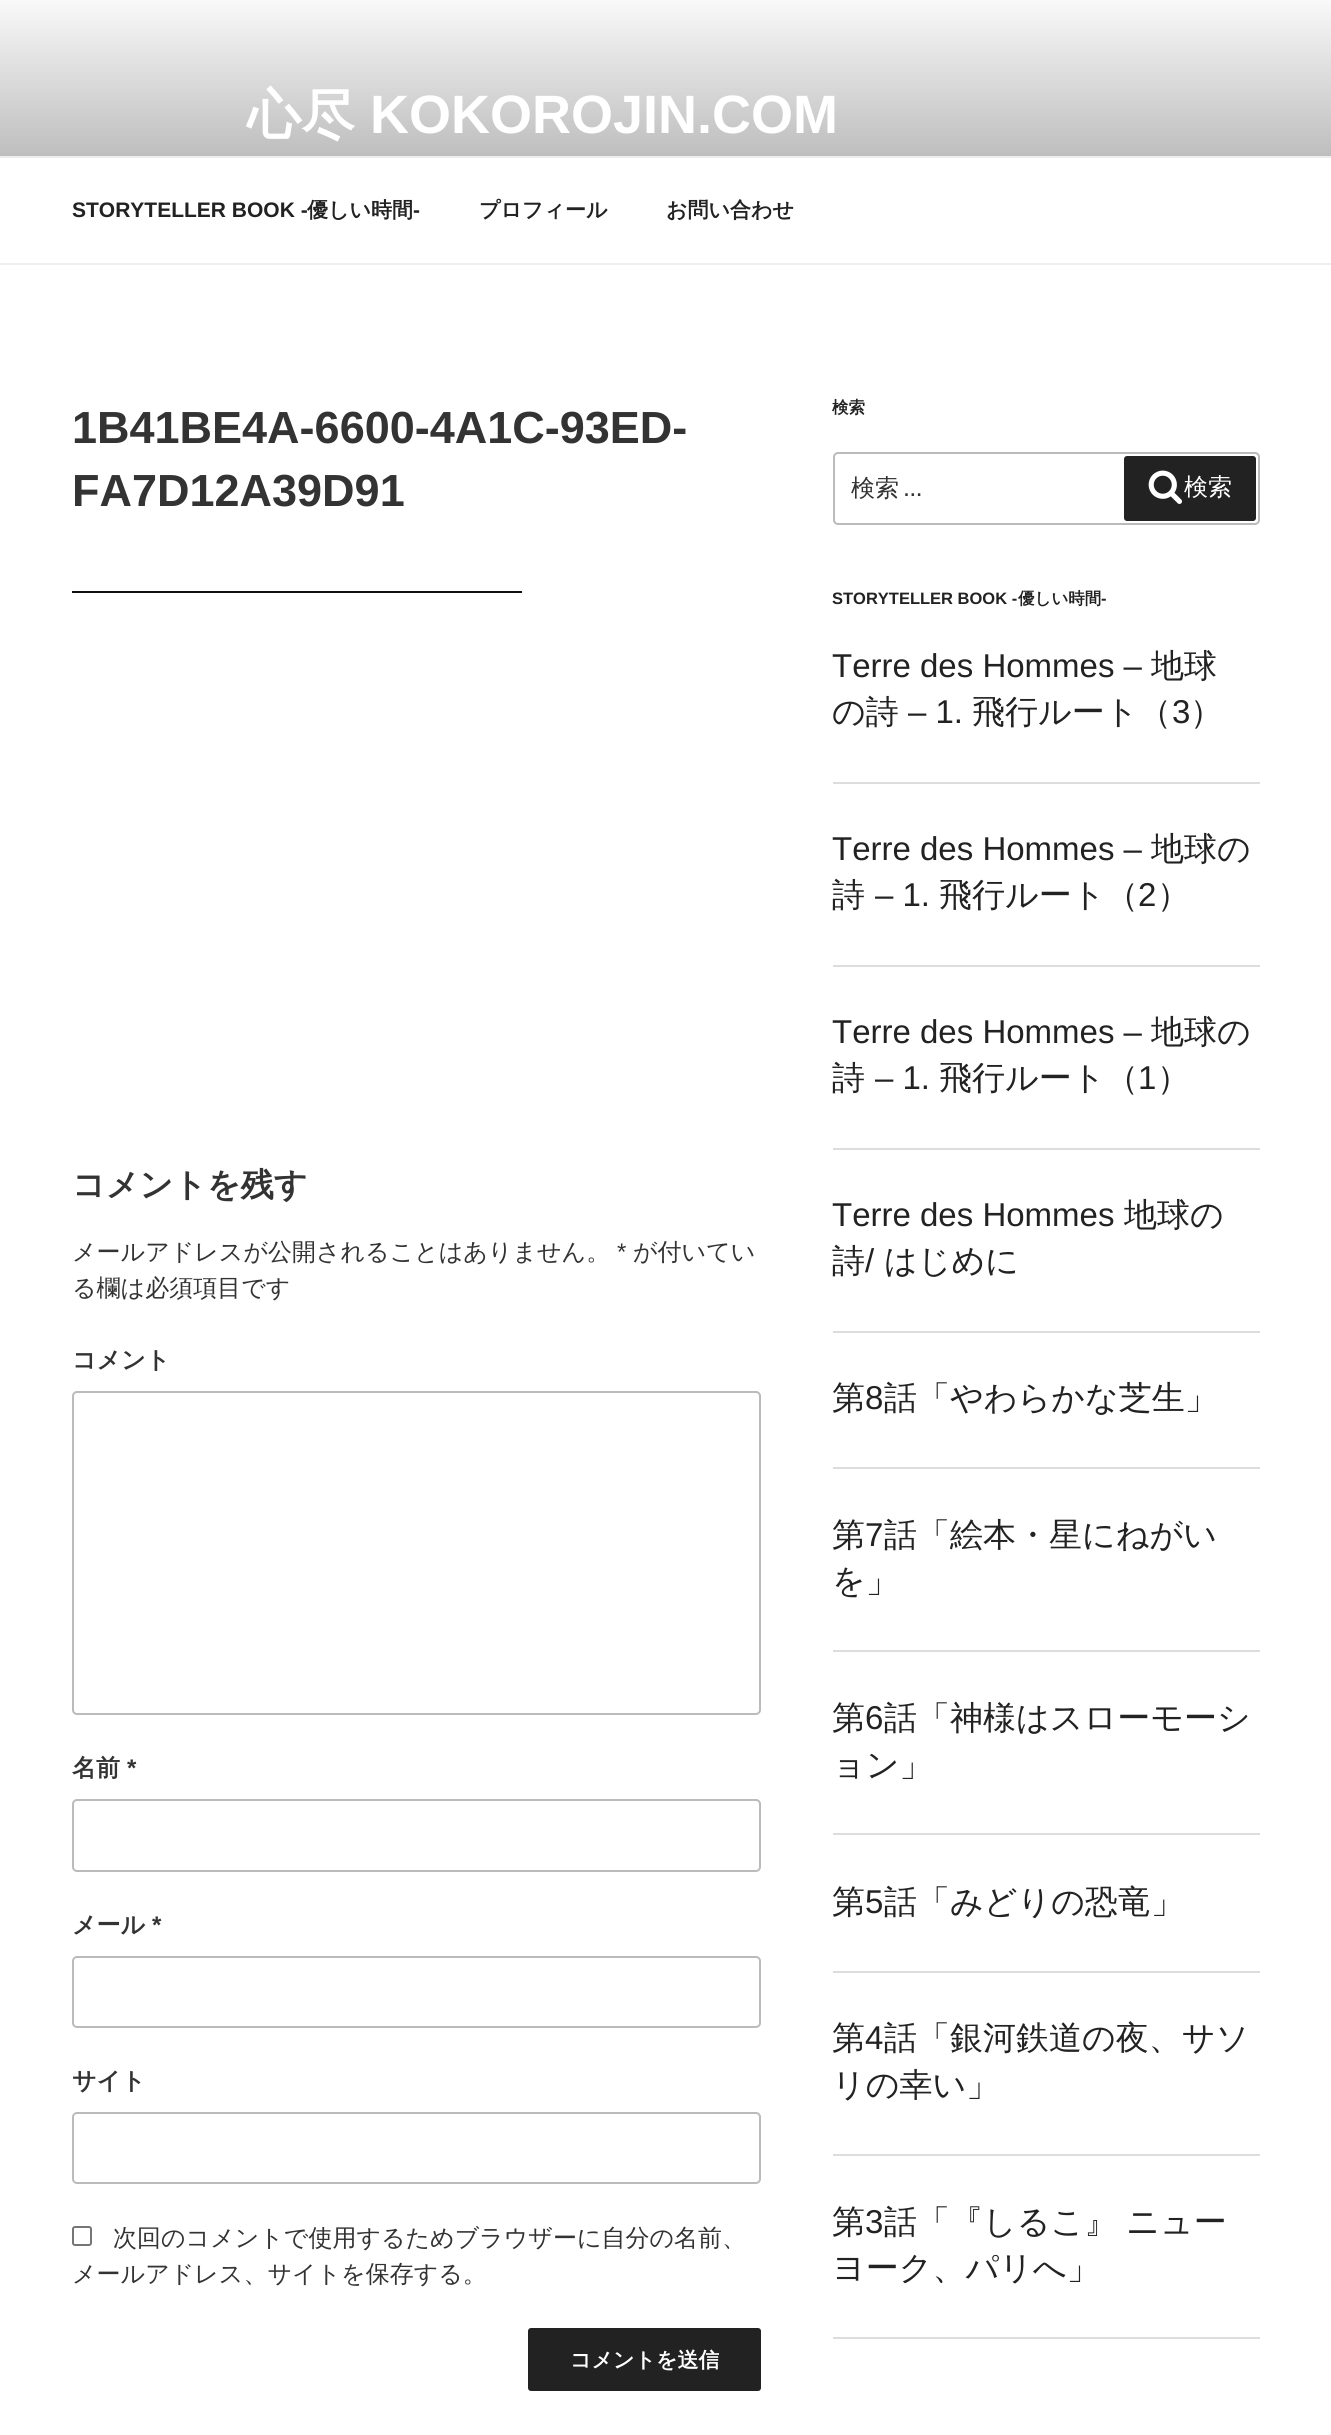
#include <cairo.h>
#include <math.h>
#include <stddef.h>


static void set_color(cairo_t *cr, unsigned color) {
    cairo_set_source_rgb(cr, (color >> 16) / 255.0, (color >> 8 & 255) / 255.0, (color & 255) / 255.0);
}

static void draw_text(cairo_t *cr, double x, double y, const char *s, const char *family, double size, int italic, int bold, unsigned color) {
    cairo_select_font_face(cr, family, italic ? CAIRO_FONT_SLANT_ITALIC : CAIRO_FONT_SLANT_NORMAL,
        bold ? CAIRO_FONT_WEIGHT_BOLD : CAIRO_FONT_WEIGHT_NORMAL);
    cairo_set_font_size(cr, size);
    set_color(cr, color);
    cairo_move_to(cr, x, y);
    cairo_show_text(cr, s);
}

static void draw_spaced(cairo_t *cr, double x, double y, const char *s, double letter, double word) {
    cairo_move_to(cr, x, y);
    while (*s) {
        char ch[5] = {0};
        int n = 0;
        do ch[n++] = *s++; while ((*s & 0xC0) == 0x80);
        cairo_show_text(cr, ch);
        cairo_rel_move_to(cr, letter + word * (*ch == ' '), 0);
    }
}

static void fill_rect(cairo_t *cr, double x, double y, double w, double h, unsigned color) {
    set_color(cr, color);
    cairo_rectangle(cr, x, y, w, h);
    cairo_fill(cr);
}

static void rounded_rect(cairo_t *cr, double x, double y, double w, double h, double r) {
    cairo_new_sub_path(cr);
    cairo_arc(cr, x + w - r, y + h - r, r, 0, M_PI / 2);
    cairo_arc(cr, x + r, y + h - r, r, M_PI / 2, M_PI);
    cairo_arc(cr, x + r, y + r, r, M_PI, 1.5 * M_PI);
    cairo_arc(cr, x + w - r, y + r, r, 1.5 * M_PI, 2 * M_PI);
    cairo_close_path(cr);
}

static void draw_image(cairo_t *cr, const char *path, double x, double y, double w, double h) {
    cairo_surface_t *image = cairo_image_surface_create_from_png(path);
    cairo_save(cr);
    cairo_set_source_surface(cr, image, x, y);
    cairo_rectangle(cr, x, y, w, h);
    cairo_fill(cr);
    cairo_restore(cr);
    cairo_surface_destroy(image);
}

int main(void) {
    cairo_surface_t *surface = cairo_image_surface_create(CAIRO_FORMAT_RGB24, 1331, 2435);
    cairo_t *cr = cairo_create(surface);
    cairo_font_options_t *options = cairo_font_options_create();
    cairo_font_options_set_hint_metrics(options, CAIRO_HINT_METRICS_OFF);
    cairo_font_options_set_hint_style(options, CAIRO_HINT_STYLE_NONE);
    cairo_set_font_options(cr, options);
    cairo_set_miter_limit(cr, 4);
    cairo_pattern_t *gradient;
    set_color(cr, 0xFFFFFF);
    cairo_paint(cr);
    gradient = cairo_pattern_create_linear(666, 0, 666, 264);
    cairo_pattern_add_color_stop_rgba(gradient, 0, 0.976, 0.976, 0.976, 1);
    cairo_pattern_add_color_stop_rgba(gradient, 0.75, 0.682, 0.682, 0.682, 1);
    cairo_pattern_add_color_stop_rgba(gradient, 1, 0.682, 0.682, 0.682, 1);
    cairo_set_source(cr, gradient);
    cairo_pattern_destroy(gradient);
    cairo_rectangle(cr, 0, 0, 1331, 156);
    cairo_fill(cr);
    draw_text(cr, 247, 133, "心尽", "WenQuanYi Zen Hei", 54, 0, 1, 0xFFFFFF);
    draw_text(cr, 370, 133, "KOKOROJIN.COM", "Liberation Sans", 54, 0, 1, 0xFFFFFF);
    fill_rect(cr, 0, 156, 1331, 2, 0xEEEEEE);
    fill_rect(cr, 0, 263, 1331, 2, 0xEEEEEE);
    draw_text(cr, 72, 217, "STORYTELLER BOOK -", "Liberation Sans", 21, 0, 1, 0x222222);
    draw_text(cr, 307, 217, "優しい時間", "WenQuanYi Zen Hei", 21, 0, 1, 0x222222);
    draw_text(cr, 413, 217, "-", "Liberation Sans", 21, 0, 1, 0x222222);
    draw_text(cr, 479, 217, "プロフィール", "WenQuanYi Zen Hei", 21, 0, 1, 0x222222);
    draw_text(cr, 666, 217, "お問い合わせ", "WenQuanYi Zen Hei", 21, 0, 1, 0x222222);
    draw_text(cr, 72, 443, "1B41BE4A-6600-4A1C-93ED-", "Liberation Sans", 45, 0, 1, 0x333333);
    draw_text(cr, 72, 506, "FA7D12A39D91", "Liberation Sans", 45, 0, 1, 0x333333);
    fill_rect(cr, 72, 591, 450, 2, 0x0F0F0F);
    draw_text(cr, 72, 1196, "コメントを残す", "WenQuanYi Zen Hei", 33, 0, 1, 0x333333);
    draw_text(cr, 72, 1260, "メールアドレスが公開されることはありません。", "WenQuanYi Zen Hei Medium", 24, 0, 0, 0x333333);
    draw_text(cr, 617, 1260, "*", "Liberation Sans", 24, 0, 0, 0x333333);
    draw_text(cr, 633, 1260, "が付いてい", "WenQuanYi Zen Hei Medium", 24, 0, 0, 0x333333);
    draw_text(cr, 72, 1296, "る欄は必須項目です", "WenQuanYi Zen Hei Medium", 24, 0, 0, 0x333333);
    draw_text(cr, 72, 1368, "コメント", "WenQuanYi Zen Hei", 24, 0, 1, 0x333333);
    rounded_rect(cr, 73, 1392, 687, 322, 4);
    set_color(cr, 0xBBBBBB);
    cairo_stroke(cr);
    draw_text(cr, 72, 1776, "名前", "WenQuanYi Zen Hei", 24, 0, 1, 0x333333);
    draw_text(cr, 127, 1776, "*", "Liberation Sans", 24, 0, 1, 0x333333);
    rounded_rect(cr, 73, 1800, 687, 71, 4);
    set_color(cr, 0xBBBBBB);
    cairo_stroke(cr);
    draw_text(cr, 72, 1933, "メール", "WenQuanYi Zen Hei", 24, 0, 1, 0x333333);
    draw_text(cr, 152, 1933, "*", "Liberation Sans", 24, 0, 1, 0x333333);
    rounded_rect(cr, 73, 1957, 687, 70, 4);
    set_color(cr, 0xBBBBBB);
    cairo_stroke(cr);
    draw_text(cr, 72, 2089, "サイト", "WenQuanYi Zen Hei", 24, 0, 1, 0x333333);
    rounded_rect(cr, 73, 2113, 687, 70, 4);
    set_color(cr, 0xBBBBBB);
    cairo_stroke(cr);
    rounded_rect(cr, 73, 2227, 18, 18, 2);
    set_color(cr, 0x767676);
    cairo_stroke(cr);
    draw_text(cr, 113, 2246, "次回のコメントで使用するためブラウザーに自分の名前、", "WenQuanYi Zen Hei Medium", 24, 0, 0, 0x333333);
    draw_text(cr, 72, 2282, "メールアドレス、サイトを保存する。", "WenQuanYi Zen Hei Medium", 24, 0, 0, 0x333333);
    set_color(cr, 0x222222);
    rounded_rect(cr, 528, 2328, 233, 63, 3);
    cairo_fill(cr);
    draw_text(cr, 570, 2367, "コメントを送信", "WenQuanYi Zen Hei", 21, 0, 1, 0xFFFFFF);
    draw_text(cr, 832, 413, "検索", "WenQuanYi Zen Hei", 16.5, 0, 1, 0x222222);
    rounded_rect(cr, 834, 453, 425, 71, 4);
    set_color(cr, 0xBBBBBB);
    cairo_stroke(cr);
    draw_text(cr, 851, 496, "検索", "WenQuanYi Zen Hei Medium", 24, 0, 0, 0x333333);
    draw_text(cr, 904, 496, "…", "Libre Franklin", 24, 0, 0, 0x333333);
    set_color(cr, 0x222222);
    rounded_rect(cr, 1124, 456, 132, 65, 3);
    cairo_fill(cr);
    draw_image(cr, "assets/img1.png", 1148, 470, 34, 34);
    draw_text(cr, 1184, 495, "検索", "WenQuanYi Zen Hei Medium", 24, 0, 0, 0xFFFFFF);
    draw_text(cr, 832, 604, "STORYTELLER BOOK -", "Liberation Sans", 16.5, 0, 1, 0x222222);
    draw_text(cr, 1018, 604, "優しい時間", "WenQuanYi Zen Hei", 16.5, 0, 1, 0x222222);
    draw_text(cr, 1101, 604, "-", "Liberation Sans", 16.5, 0, 1, 0x222222);
    fill_rect(cr, 833, 782, 427, 2, 0xDDDDDD);
    draw_text(cr, 832, 677, "Terre des Hommes –", "Liberation Sans", 33, 0, 0, 0x222222);
    draw_text(cr, 1151, 677, "地球", "WenQuanYi Zen Hei Medium", 33, 0, 0, 0x222222);
    draw_text(cr, 832, 723, "の詩", "WenQuanYi Zen Hei Medium", 33, 0, 0, 0x222222);
    draw_text(cr, 908, 723, "– 1.", "Liberation Sans", 33, 0, 0, 0x222222);
    draw_text(cr, 972, 723, "飛行ルート（", "WenQuanYi Zen Hei Medium", 33, 0, 0, 0x222222);
    draw_text(cr, 1172, 723, "3", "Liberation Sans", 33, 0, 0, 0x222222);
    draw_text(cr, 1190, 723, "）", "WenQuanYi Zen Hei Medium", 33, 0, 0, 0x222222);
    fill_rect(cr, 833, 965, 427, 2, 0xDDDDDD);
    draw_text(cr, 832, 860, "Terre des Hommes –", "Liberation Sans", 33, 0, 0, 0x222222);
    draw_text(cr, 1151, 860, "地球の", "WenQuanYi Zen Hei Medium", 33, 0, 0, 0x222222);
    draw_text(cr, 832, 906, "詩", "WenQuanYi Zen Hei Medium", 33, 0, 0, 0x222222);
    draw_text(cr, 875, 906, "– 1.", "Liberation Sans", 33, 0, 0, 0x222222);
    draw_text(cr, 939, 906, "飛行ルート（", "WenQuanYi Zen Hei Medium", 33, 0, 0, 0x222222);
    draw_text(cr, 1138, 906, "2", "Liberation Sans", 33, 0, 0, 0x222222);
    draw_text(cr, 1157, 906, "）", "WenQuanYi Zen Hei Medium", 33, 0, 0, 0x222222);
    fill_rect(cr, 833, 1148, 427, 2, 0xDDDDDD);
    draw_text(cr, 832, 1043, "Terre des Hommes –", "Liberation Sans", 33, 0, 0, 0x222222);
    draw_text(cr, 1151, 1043, "地球の", "WenQuanYi Zen Hei Medium", 33, 0, 0, 0x222222);
    draw_text(cr, 832, 1089, "詩", "WenQuanYi Zen Hei Medium", 33, 0, 0, 0x222222);
    draw_text(cr, 875, 1089, "– 1.", "Liberation Sans", 33, 0, 0, 0x222222);
    draw_text(cr, 939, 1089, "飛行ルート（", "WenQuanYi Zen Hei Medium", 33, 0, 0, 0x222222);
    draw_text(cr, 1138, 1089, "1", "Liberation Sans", 33, 0, 0, 0x222222);
    draw_text(cr, 1157, 1089, "）", "WenQuanYi Zen Hei Medium", 33, 0, 0, 0x222222);
    fill_rect(cr, 833, 1331, 427, 2, 0xDDDDDD);
    draw_text(cr, 832, 1226, "Terre des Hommes", "Liberation Sans", 33, 0, 0, 0x222222);
    draw_text(cr, 1124, 1226, "地球の", "WenQuanYi Zen Hei Medium", 33, 0, 0, 0x222222);
    draw_text(cr, 832, 1272, "詩", "WenQuanYi Zen Hei Medium", 33, 0, 0, 0x222222);
    draw_text(cr, 865, 1272, "/", "Liberation Sans", 33, 0, 0, 0x222222);
    draw_text(cr, 884, 1272, "はじめに", "WenQuanYi Zen Hei Medium", 33, 0, 0, 0x222222);
    fill_rect(cr, 833, 1467, 427, 2, 0xDDDDDD);
    draw_text(cr, 832, 1409, "第", "WenQuanYi Zen Hei Medium", 33, 0, 0, 0x222222);
    draw_text(cr, 865, 1409, "8", "Liberation Sans", 33, 0, 0, 0x222222);
    draw_text(cr, 884, 1409, "話「やわらかな芝生」", "WenQuanYi Zen Hei Medium", 33, 0, 0, 0x222222);
    fill_rect(cr, 833, 1650, 427, 2, 0xDDDDDD);
    draw_text(cr, 832, 1546, "第", "WenQuanYi Zen Hei Medium", 33, 0, 0, 0x222222);
    draw_text(cr, 865, 1546, "7", "Liberation Sans", 33, 0, 0, 0x222222);
    draw_text(cr, 884, 1546, "話「絵本・星にねがい", "WenQuanYi Zen Hei Medium", 33, 0, 0, 0x222222);
    draw_text(cr, 832, 1592, "を」", "WenQuanYi Zen Hei Medium", 33, 0, 0, 0x222222);
    fill_rect(cr, 833, 1833, 427, 2, 0xDDDDDD);
    draw_text(cr, 832, 1729, "第", "WenQuanYi Zen Hei Medium", 33, 0, 0, 0x222222);
    draw_text(cr, 865, 1729, "6", "Liberation Sans", 33, 0, 0, 0x222222);
    draw_text(cr, 884, 1729, "話「神様はスローモーシ", "WenQuanYi Zen Hei Medium", 33, 0, 0, 0x222222);
    draw_text(cr, 832, 1776, "ョン」", "WenQuanYi Zen Hei Medium", 33, 0, 0, 0x222222);
    fill_rect(cr, 833, 1971, 427, 2, 0xDDDDDD);
    draw_text(cr, 832, 1913, "第", "WenQuanYi Zen Hei Medium", 33, 0, 0, 0x222222);
    draw_text(cr, 865, 1913, "5", "Liberation Sans", 33, 0, 0, 0x222222);
    draw_text(cr, 884, 1913, "話「みどりの恐竜」", "WenQuanYi Zen Hei Medium", 33, 0, 0, 0x222222);
    fill_rect(cr, 833, 2154, 427, 2, 0xDDDDDD);
    draw_text(cr, 832, 2049, "第", "WenQuanYi Zen Hei Medium", 33, 0, 0, 0x222222);
    draw_text(cr, 865, 2049, "4", "Liberation Sans", 33, 0, 0, 0x222222);
    draw_text(cr, 884, 2049, "話「銀河鉄道の夜、サソ", "WenQuanYi Zen Hei Medium", 33, 0, 0, 0x222222);
    draw_text(cr, 832, 2096, "リの幸い」", "WenQuanYi Zen Hei Medium", 33, 0, 0, 0x222222);
    fill_rect(cr, 833, 2337, 427, 2, 0xDDDDDD);
    draw_text(cr, 832, 2233, "第", "WenQuanYi Zen Hei Medium", 33, 0, 0, 0x222222);
    draw_text(cr, 865, 2233, "3", "Liberation Sans", 33, 0, 0, 0x222222);
    cairo_select_font_face(cr, "WenQuanYi Zen Hei Medium", CAIRO_FONT_SLANT_NORMAL, CAIRO_FONT_WEIGHT_NORMAL);
    draw_spaced(cr, 884, 2233, "話「『しるこ』 ニュー", 0, -1);
    draw_text(cr, 832, 2279, "ヨーク、パリへ」", "WenQuanYi Zen Hei Medium", 33, 0, 0, 0x222222);
    cairo_surface_write_to_png(surface, "output.png");
    cairo_font_options_destroy(options);
    cairo_destroy(cr);
    cairo_surface_destroy(surface);
    return 0;
}
